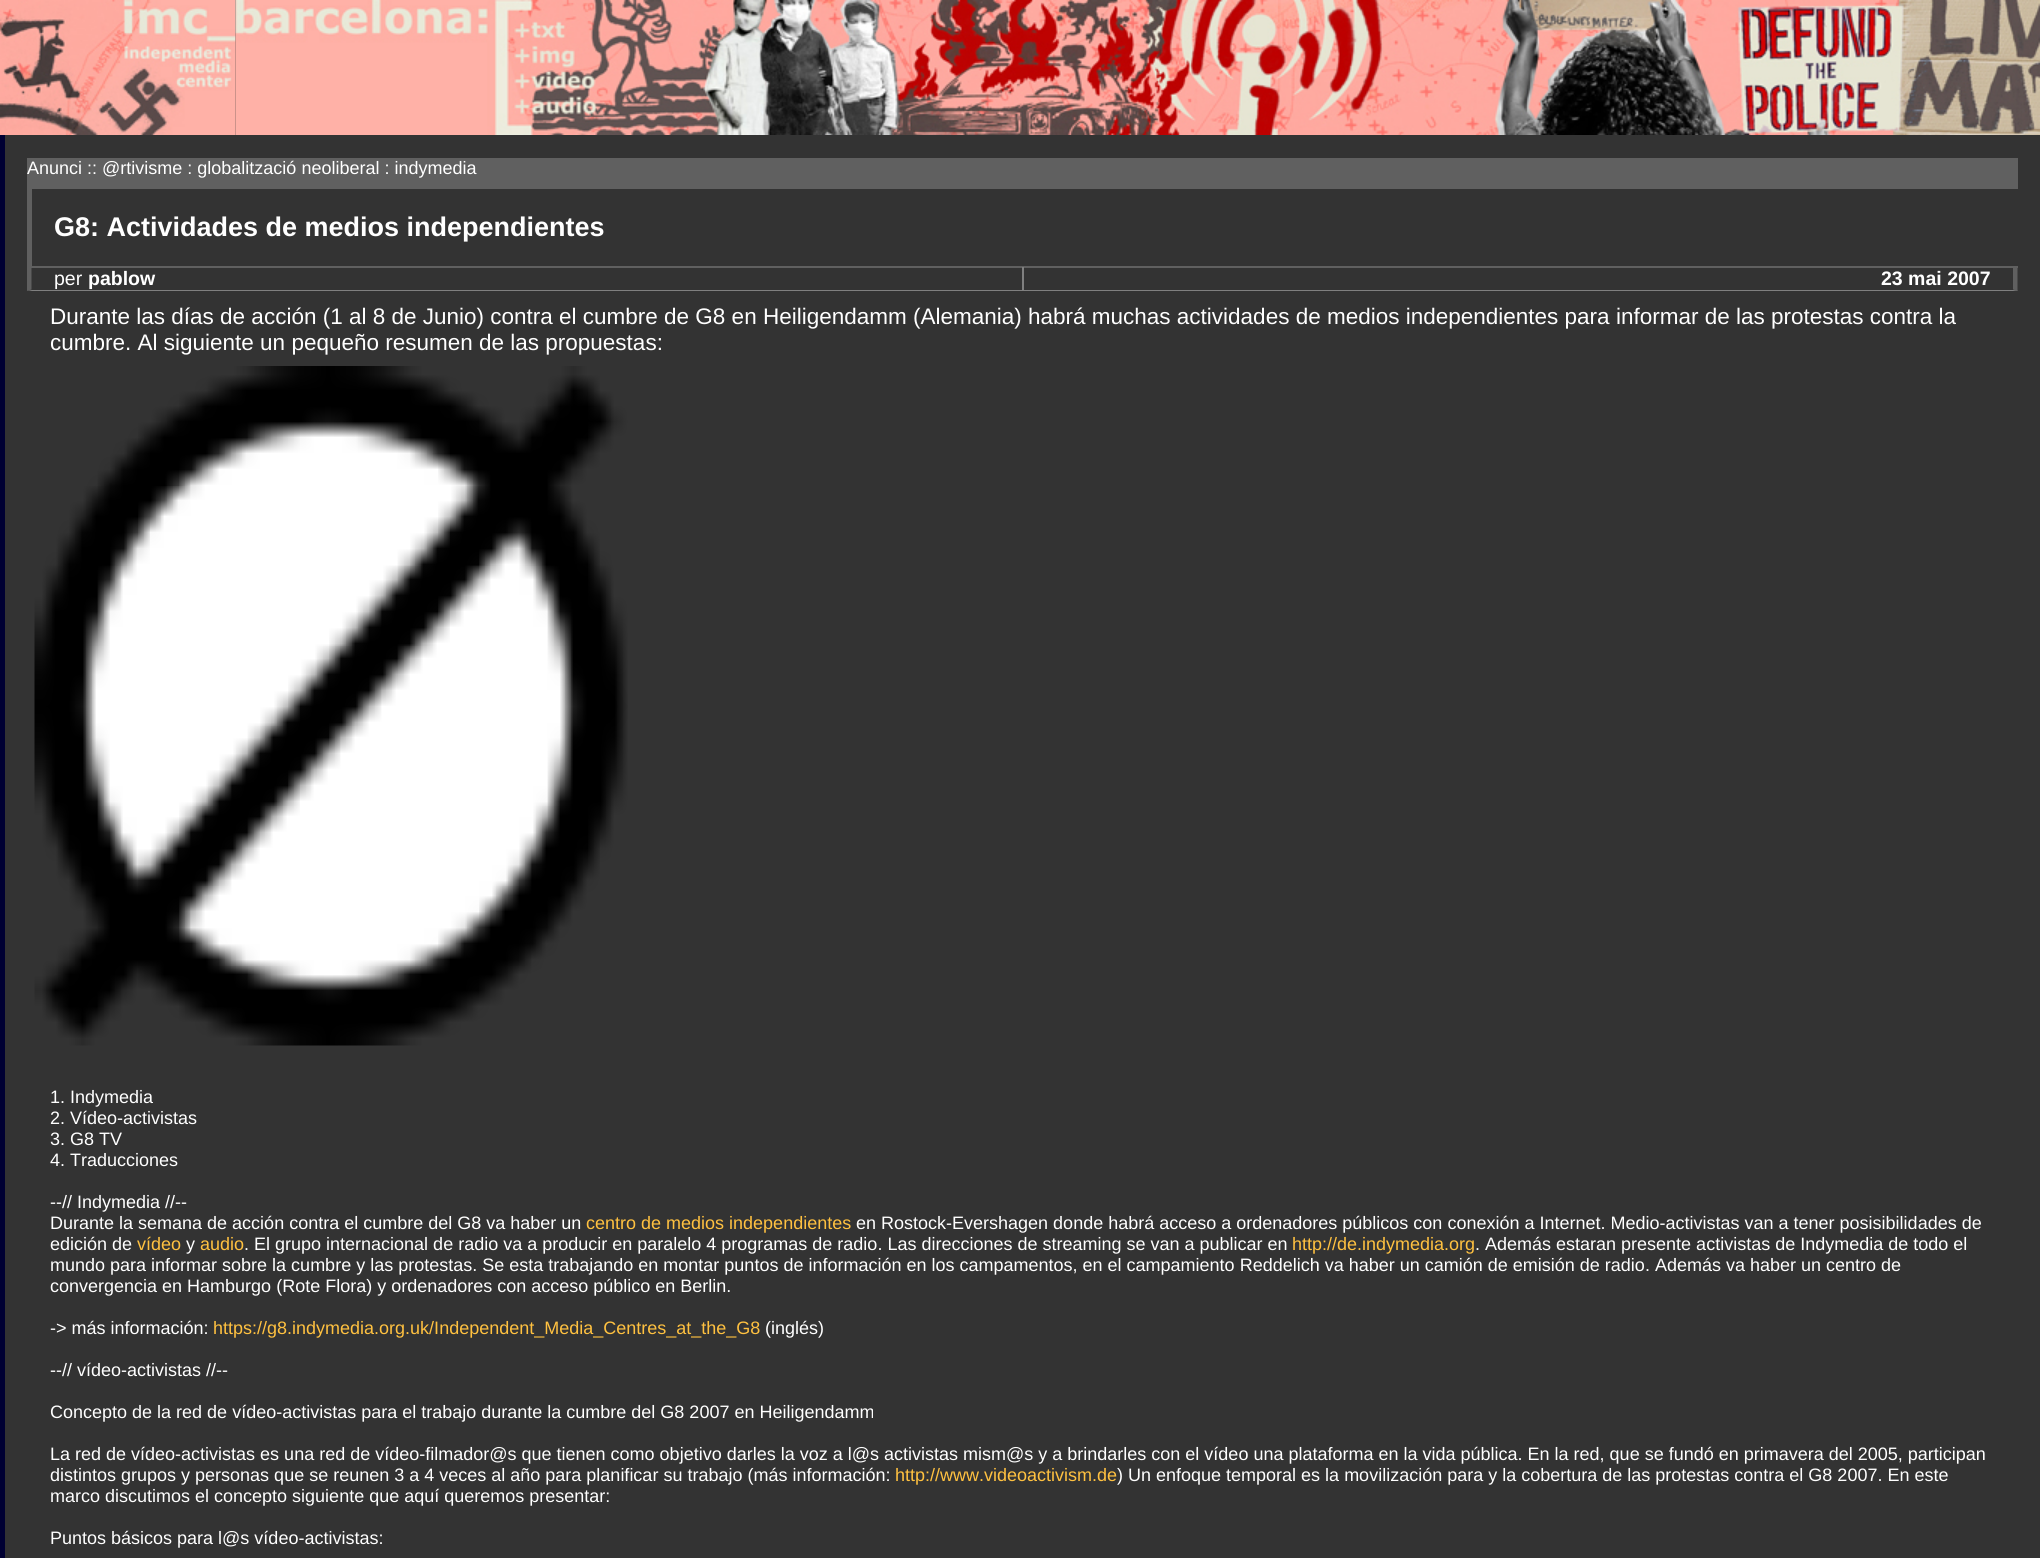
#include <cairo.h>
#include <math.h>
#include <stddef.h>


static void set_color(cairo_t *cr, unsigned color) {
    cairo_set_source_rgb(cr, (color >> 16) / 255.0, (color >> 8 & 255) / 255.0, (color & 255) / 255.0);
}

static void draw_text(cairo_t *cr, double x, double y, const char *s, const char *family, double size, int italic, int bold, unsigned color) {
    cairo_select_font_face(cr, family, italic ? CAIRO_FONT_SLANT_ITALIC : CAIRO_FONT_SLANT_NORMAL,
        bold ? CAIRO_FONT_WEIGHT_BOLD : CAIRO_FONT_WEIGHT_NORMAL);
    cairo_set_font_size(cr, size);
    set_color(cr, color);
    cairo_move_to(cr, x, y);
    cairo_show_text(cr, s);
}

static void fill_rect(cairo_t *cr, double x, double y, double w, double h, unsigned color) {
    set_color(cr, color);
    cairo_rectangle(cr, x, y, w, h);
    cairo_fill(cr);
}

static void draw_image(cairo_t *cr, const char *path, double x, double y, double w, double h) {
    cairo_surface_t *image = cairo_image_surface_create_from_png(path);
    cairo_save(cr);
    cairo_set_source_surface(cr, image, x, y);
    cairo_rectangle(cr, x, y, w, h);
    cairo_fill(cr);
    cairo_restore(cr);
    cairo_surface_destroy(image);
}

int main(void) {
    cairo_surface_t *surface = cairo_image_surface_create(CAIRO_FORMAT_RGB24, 2040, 1558);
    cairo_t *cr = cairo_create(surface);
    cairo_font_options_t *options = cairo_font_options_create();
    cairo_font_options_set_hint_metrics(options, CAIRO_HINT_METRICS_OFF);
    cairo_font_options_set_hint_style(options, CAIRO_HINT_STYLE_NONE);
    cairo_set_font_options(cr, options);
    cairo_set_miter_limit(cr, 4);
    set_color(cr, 0x333333);
    cairo_paint(cr);
    draw_image(cr, "assets/img1.png", 0, 0, 236, 135);
    draw_image(cr, "assets/img2.png", 235, 0, 1805, 135);
    fill_rect(cr, 0, 135, 5, 1423, 0x000033);
    fill_rect(cr, 27, 158, 1991, 21, 0x606060);
    draw_text(cr, 27, 174, "Anunci :: @rtivisme : globalització neoliberal : indymedia", "Liberation Sans", 18, 0, 0, 0xFFFFFF);
    fill_rect(cr, 32, 179, 1986, 10, 0x606060);
    fill_rect(cr, 27, 266, 1991, 2, 0x606060);
    fill_rect(cr, 27, 179, 5, 88, 0x606060);
    draw_text(cr, 54, 236, "G8: Actividades de medios independientes", "Liberation Sans", 27, 0, 1, 0xFFFFFF);
    fill_rect(cr, 1022, 267, 2, 24, 0x808080);
    cairo_new_path(cr);
    cairo_move_to(cr, 1023, 291);
    cairo_line_to(cr, 27, 291);
    cairo_line_to(cr, 32, 290);
    cairo_line_to(cr, 1022, 290);
    cairo_close_path(cr);
    cairo_fill(cr);
    set_color(cr, 0x606060);
    cairo_new_path(cr);
    cairo_move_to(cr, 27, 291);
    cairo_line_to(cr, 27, 267);
    cairo_line_to(cr, 31.5, 267);
    cairo_line_to(cr, 31.5, 289.5);
    cairo_close_path(cr);
    cairo_fill(cr);
    draw_text(cr, 54, 285, "per", "Liberation Sans", 19.5, 0, 0, 0xFFFFFF);
    draw_text(cr, 88, 285, "pablow", "Liberation Sans", 19.5, 0, 1, 0xFFFFFF);
    set_color(cr, 0x606060);
    cairo_new_path(cr);
    cairo_move_to(cr, 2017.5, 267);
    cairo_line_to(cr, 2017.5, 291);
    cairo_line_to(cr, 2013, 289.5);
    cairo_line_to(cr, 2013, 267);
    cairo_close_path(cr);
    cairo_fill(cr);
    set_color(cr, 0x808080);
    cairo_new_path(cr);
    cairo_move_to(cr, 2018, 291);
    cairo_line_to(cr, 1023, 291);
    cairo_line_to(cr, 1023, 290);
    cairo_line_to(cr, 2013, 290);
    cairo_close_path(cr);
    cairo_fill(cr);
    draw_text(cr, 1881, 285, "23 mai 2007", "Liberation Sans", 19.5, 0, 1, 0xFFFFFF);
    draw_text(cr, 50, 324, "Durante las días de acción (1 al 8 de Junio) contra el cumbre de G8 en Heiligendamm (Alemania) habrá muchas actividades de medios independientes para informar de las protestas contra la", "Liberation Sans", 22.5, 0, 0, 0xFFFFFF);
    draw_text(cr, 50, 350, "cumbre. Al siguiente un pequeño resumen de las propuestas:", "Liberation Sans", 22.5, 0, 0, 0xFFFFFF);
    draw_image(cr, "assets/img3.png", 34, 366, 594, 680);
    draw_text(cr, 50, 1103, "1. Indymedia", "Liberation Sans", 18, 0, 0, 0xFFFFFF);
    draw_text(cr, 50, 1124, "2. Vídeo-activistas", "Liberation Sans", 18, 0, 0, 0xFFFFFF);
    draw_text(cr, 50, 1145, "3. G8 TV", "Liberation Sans", 18, 0, 0, 0xFFFFFF);
    draw_text(cr, 50, 1166, "4. Traducciones", "Liberation Sans", 18, 0, 0, 0xFFFFFF);
    draw_text(cr, 50, 1208, "--// Indymedia //--", "Liberation Sans", 18, 0, 0, 0xFFFFFF);
    draw_text(cr, 50, 1229, "Durante la semana de acción contra el cumbre del G8 va haber un", "Liberation Sans", 18, 0, 0, 0xFFFFFF);
    draw_text(cr, 586, 1229, "centro de medios independientes", "Liberation Sans", 18, 0, 0, 0xFFC140);
    draw_text(cr, 856, 1229, "en Rostock-Evershagen donde habrá acceso a ordenadores públicos con conexión a Internet. Medio-activistas van a tener posisibilidades de", "Liberation Sans", 18, 0, 0, 0xFFFFFF);
    draw_text(cr, 50, 1250, "edición de", "Liberation Sans", 18, 0, 0, 0xFFFFFF);
    draw_text(cr, 137, 1250, "vídeo", "Liberation Sans", 18, 0, 0, 0xFFC140);
    draw_text(cr, 186, 1250, "y", "Liberation Sans", 18, 0, 0, 0xFFFFFF);
    draw_text(cr, 200, 1250, "audio", "Liberation Sans", 18, 0, 0, 0xFFC140);
    draw_text(cr, 244, 1250, ". El grupo internacional de radio va a producir en paralelo 4 programas de radio. Las direcciones de streaming se van a publicar en", "Liberation Sans", 18, 0, 0, 0xFFFFFF);
    draw_text(cr, 1292, 1250, "http://de.indymedia.org", "Liberation Sans", 18, 0, 0, 0xFFC140);
    draw_text(cr, 1475, 1250, ". Además estaran presente activistas de Indymedia de todo el", "Liberation Sans", 18, 0, 0, 0xFFFFFF);
    draw_text(cr, 50, 1271, "mundo para informar sobre la cumbre y las protestas. Se esta trabajando en montar puntos de información en los campamentos, en el campamiento Reddelich va haber un camión de emisión de radio. Además va haber un centro de", "Liberation Sans", 18, 0, 0, 0xFFFFFF);
    draw_text(cr, 50, 1292, "convergencia en Hamburgo (Rote Flora) y ordenadores con acceso público en Berlin.", "Liberation Sans", 18, 0, 0, 0xFFFFFF);
    draw_text(cr, 50, 1334, "-> más información:", "Liberation Sans", 18, 0, 0, 0xFFFFFF);
    draw_text(cr, 213, 1334, "https://g8.indymedia.org.uk/Independent_Media_Centres_at_the_G8", "Liberation Sans", 18, 0, 0, 0xFFC140);
    draw_text(cr, 765, 1334, "(inglés)", "Liberation Sans", 18, 0, 0, 0xFFFFFF);
    draw_text(cr, 50, 1376, "--// vídeo-activistas //--", "Liberation Sans", 18, 0, 0, 0xFFFFFF);
    draw_text(cr, 50, 1418, "Concepto de la red de vídeo-activistas para el trabajo durante la cumbre del G8 2007 en Heiligendamm", "Liberation Sans", 18, 0, 0, 0xFFFFFF);
    draw_text(cr, 50, 1460, "La red de vídeo-activistas es una red de vídeo-filmador@s que tienen como objetivo darles la voz a l@s activistas mism@s y a brindarles con el vídeo una plataforma en la vida pública. En la red, que se fundó en primavera del 2005, participan", "Liberation Sans", 18, 0, 0, 0xFFFFFF);
    draw_text(cr, 50, 1481, "distintos grupos y personas que se reunen 3 a 4 veces al año para planificar su trabajo (más información:", "Liberation Sans", 18, 0, 0, 0xFFFFFF);
    draw_text(cr, 895, 1481, "http://www.videoactivism.de", "Liberation Sans", 18, 0, 0, 0xFFC140);
    draw_text(cr, 1117, 1481, ") Un enfoque temporal es la movilización para y la cobertura de las protestas contra el G8 2007. En este", "Liberation Sans", 18, 0, 0, 0xFFFFFF);
    draw_text(cr, 50, 1502, "marco discutimos el concepto siguiente que aquí queremos presentar:", "Liberation Sans", 18, 0, 0, 0xFFFFFF);
    draw_text(cr, 50, 1544, "Puntos básicos para l@s vídeo-activistas:", "Liberation Sans", 18, 0, 0, 0xFFFFFF);
    cairo_surface_write_to_png(surface, "output.png");
    cairo_font_options_destroy(options);
    cairo_destroy(cr);
    cairo_surface_destroy(surface);
    return 0;
}
